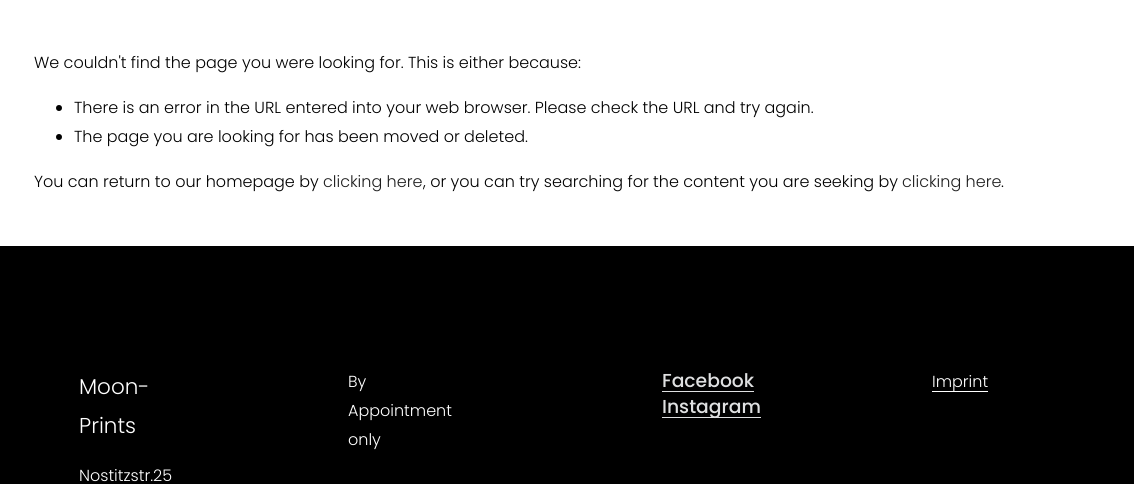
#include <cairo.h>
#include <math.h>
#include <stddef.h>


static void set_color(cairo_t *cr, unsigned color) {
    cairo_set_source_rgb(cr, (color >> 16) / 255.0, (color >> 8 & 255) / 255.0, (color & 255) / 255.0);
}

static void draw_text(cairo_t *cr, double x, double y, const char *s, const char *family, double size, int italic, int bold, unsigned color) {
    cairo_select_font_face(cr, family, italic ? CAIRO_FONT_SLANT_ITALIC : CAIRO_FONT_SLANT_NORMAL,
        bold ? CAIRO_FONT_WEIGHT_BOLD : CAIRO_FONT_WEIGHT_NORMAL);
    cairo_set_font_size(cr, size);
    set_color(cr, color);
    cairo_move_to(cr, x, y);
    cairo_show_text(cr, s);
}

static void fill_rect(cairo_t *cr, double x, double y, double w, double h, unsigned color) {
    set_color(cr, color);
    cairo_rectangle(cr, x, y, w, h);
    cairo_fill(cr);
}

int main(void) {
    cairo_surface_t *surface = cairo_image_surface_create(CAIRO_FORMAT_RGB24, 1134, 484);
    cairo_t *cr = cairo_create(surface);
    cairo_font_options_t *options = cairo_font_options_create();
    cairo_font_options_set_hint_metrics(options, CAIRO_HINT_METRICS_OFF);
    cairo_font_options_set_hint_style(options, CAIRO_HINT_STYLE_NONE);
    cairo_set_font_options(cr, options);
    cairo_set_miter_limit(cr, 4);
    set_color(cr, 0xFFFFFF);
    cairo_paint(cr);
    draw_text(cr, 34, 68, "We couldn't find the page you were looking for. This is either because:", "Poppins Light", 16, 0, 0, 0x000000);
    cairo_new_path(cr);
    cairo_arc(cr, 59, 108, 3, 0, 2 * M_PI);
    cairo_fill(cr);
    draw_text(cr, 74, 113, "There is an error in the URL entered into your web browser. Please check the URL and try again.", "Poppins Light", 16, 0, 0, 0x000000);
    cairo_new_path(cr);
    cairo_arc(cr, 59, 137, 3, 0, 2 * M_PI);
    cairo_fill(cr);
    draw_text(cr, 74, 142, "The page you are looking for has been moved or deleted.", "Poppins Light", 16, 0, 0, 0x000000);
    draw_text(cr, 34, 187, "You can return to our homepage by", "Poppins Light", 16, 0, 0, 0x000000);
    draw_text(cr, 323, 187, "clicking here", "Poppins Light", 16, 0, 0, 0x1F1F1F);
    draw_text(cr, 423, 187, ", or you can try searching for the content you are seeking by", "Poppins Light", 16, 0, 0, 0x000000);
    draw_text(cr, 902, 187, "clicking here", "Poppins Light", 16, 0, 0, 0x1F1F1F);
    draw_text(cr, 1001, 187, ".", "Poppins Light", 16, 0, 0, 0x000000);
    fill_rect(cr, 0, 246, 1134, 238, 0x000000);
    draw_text(cr, 79, 394, "Moon-", "Poppins Light", 21.5, 0, 0, 0xFFFFFF);
    draw_text(cr, 79, 433, "Prints", "Poppins Light", 21.5, 0, 0, 0xFFFFFF);
    draw_text(cr, 79, 481, "Nostitzstr.25", "Poppins Light", 16, 0, 0, 0xFFFFFF);
    draw_text(cr, 348, 387, "By", "Poppins Light", 16, 0, 0, 0xFFFFFF);
    draw_text(cr, 348, 416, "Appointment", "Poppins Light", 16, 0, 0, 0xFFFFFF);
    draw_text(cr, 348, 445, "only", "Poppins Light", 16, 0, 0, 0xFFFFFF);
    draw_text(cr, 662, 387, "Facebook", "Poppins Medium", 18.75, 0, 0, 0xDFE0E1);
    fill_rect(cr, 662, 391, 92, 1, 0xDFE0E1);
    fill_rect(cr, 662, 417, 99, 1, 0xDFE0E1);
    draw_text(cr, 662, 413, "Instagram", "Poppins Medium", 18.75, 0, 0, 0xDFE0E1);
    fill_rect(cr, 932, 391, 56, 1, 0xFFFFFF);
    draw_text(cr, 932, 387, "Imprint", "Poppins Light", 16, 0, 0, 0xFFFFFF);
    cairo_surface_write_to_png(surface, "output.png");
    cairo_font_options_destroy(options);
    cairo_destroy(cr);
    cairo_surface_destroy(surface);
    return 0;
}
